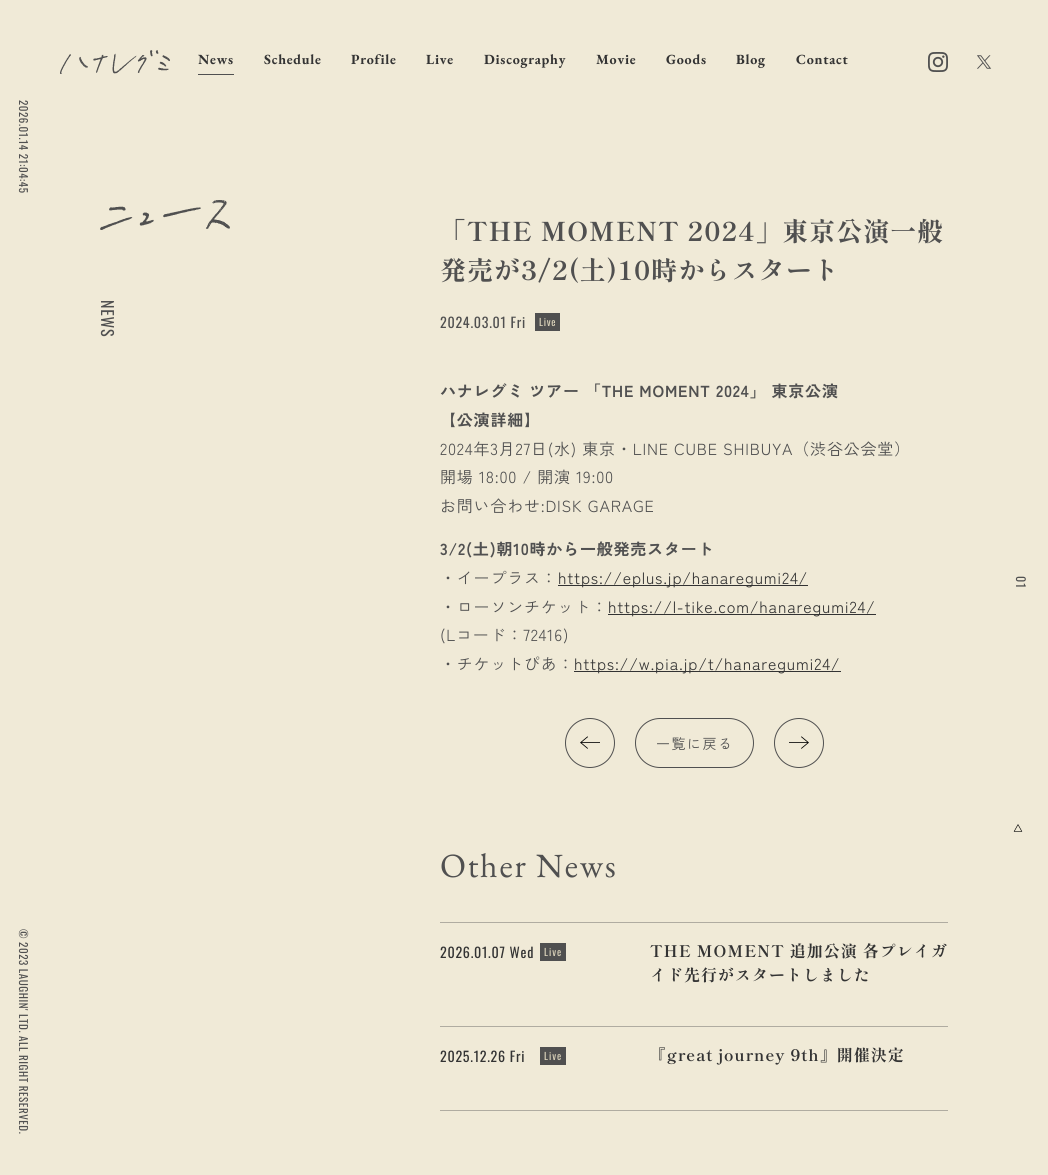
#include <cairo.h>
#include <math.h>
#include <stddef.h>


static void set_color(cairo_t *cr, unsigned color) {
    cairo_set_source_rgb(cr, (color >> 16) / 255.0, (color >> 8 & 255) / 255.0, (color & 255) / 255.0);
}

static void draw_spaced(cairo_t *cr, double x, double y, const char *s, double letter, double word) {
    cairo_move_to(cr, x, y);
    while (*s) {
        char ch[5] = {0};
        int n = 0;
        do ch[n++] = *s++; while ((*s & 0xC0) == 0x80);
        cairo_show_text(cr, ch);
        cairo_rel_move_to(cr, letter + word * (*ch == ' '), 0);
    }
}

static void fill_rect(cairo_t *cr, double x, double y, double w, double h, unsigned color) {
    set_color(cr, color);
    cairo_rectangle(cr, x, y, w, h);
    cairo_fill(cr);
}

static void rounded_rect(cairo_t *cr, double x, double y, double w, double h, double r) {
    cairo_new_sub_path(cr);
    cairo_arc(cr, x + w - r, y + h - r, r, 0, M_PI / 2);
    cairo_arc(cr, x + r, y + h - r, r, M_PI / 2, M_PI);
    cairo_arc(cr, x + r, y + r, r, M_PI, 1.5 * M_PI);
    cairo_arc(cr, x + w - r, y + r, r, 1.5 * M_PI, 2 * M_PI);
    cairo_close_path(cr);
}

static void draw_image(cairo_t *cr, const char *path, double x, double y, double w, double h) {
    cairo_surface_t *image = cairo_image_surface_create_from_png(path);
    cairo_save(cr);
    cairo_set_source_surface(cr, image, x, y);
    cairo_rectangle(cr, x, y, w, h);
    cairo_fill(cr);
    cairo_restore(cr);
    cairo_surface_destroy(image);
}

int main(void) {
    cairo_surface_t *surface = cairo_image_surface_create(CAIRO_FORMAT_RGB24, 1048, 1175);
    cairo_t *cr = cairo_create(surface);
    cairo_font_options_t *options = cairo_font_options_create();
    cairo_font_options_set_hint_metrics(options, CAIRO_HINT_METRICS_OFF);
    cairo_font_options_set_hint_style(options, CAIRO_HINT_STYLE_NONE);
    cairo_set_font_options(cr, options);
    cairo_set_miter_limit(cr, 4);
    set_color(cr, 0xF0EAD7);
    cairo_paint(cr);
    draw_image(cr, "assets/img1.png", 60, 50, 110, 24);
    cairo_select_font_face(cr, "EB Garamond", CAIRO_FONT_SLANT_NORMAL, CAIRO_FONT_WEIGHT_BOLD);
    cairo_set_font_size(cr, 14);
    set_color(cr, 0x333333);
    draw_spaced(cr, 198, 64, "News", 0.75, 0);
    fill_rect(cr, 198, 74, 36, 1, 0x505050);
    set_color(cr, 0x333333);
    draw_spaced(cr, 264, 64, "Schedule", 0.75, 0);
    draw_spaced(cr, 351, 64, "Profile", 0.75, 0);
    draw_spaced(cr, 426, 64, "Live", 0.75, 0);
    draw_spaced(cr, 484, 64, "Discography", 0.75, 0);
    draw_spaced(cr, 596, 64, "Movie", 0.75, 0);
    draw_spaced(cr, 666, 64, "Goods", 0.75, 0);
    draw_spaced(cr, 736, 64, "Blog", 0.75, 0);
    draw_spaced(cr, 796, 64, "Contact", 0.75, 0);
    draw_image(cr, "assets/img2.png", 928, 52, 20, 20);
    draw_image(cr, "assets/img3.png", 977, 55, 15, 14);
    cairo_select_font_face(cr, "Oswald", CAIRO_FONT_SLANT_NORMAL, CAIRO_FONT_WEIGHT_NORMAL);
    cairo_set_font_size(cr, 11);
    set_color(cr, 0x505050);
    cairo_save(cr);
    cairo_translate(cr, 19, 100);
    cairo_rotate(cr, 90 * M_PI / 180);
    draw_spaced(cr, 0, 0, "2026.01.14 21:04:45", 0.55, 0);
    cairo_restore(cr);
    cairo_save(cr);
    cairo_translate(cr, 19, 929);
    cairo_rotate(cr, 90 * M_PI / 180);
    draw_spaced(cr, 0, 0, "© 2023 LAUGHIN' LTD. ALL RIGHT RESERVED.", 0.55, 0);
    cairo_restore(cr);
    draw_image(cr, "assets/img4.png", 100, 200, 130, 30);
    cairo_set_font_size(cr, 16);
    cairo_save(cr);
    cairo_translate(cr, 101, 300);
    cairo_rotate(cr, 90 * M_PI / 180);
    draw_spaced(cr, 0, 0, "NEWS", 0.8, 0);
    cairo_restore(cr);
    cairo_select_font_face(cr, "Shippori Mincho", CAIRO_FONT_SLANT_NORMAL, CAIRO_FONT_WEIGHT_BOLD);
    cairo_set_font_size(cr, 26);
    draw_spaced(cr, 440, 241, "「THE MOMENT 2024」東京公演一般", 1, 0);
    draw_spaced(cr, 440, 280, "発売が3/2(土)10時からスタート", 1, 0);
    cairo_select_font_face(cr, "Oswald", CAIRO_FONT_SLANT_NORMAL, CAIRO_FONT_WEIGHT_NORMAL);
    cairo_set_font_size(cr, 14);
    draw_spaced(cr, 440, 328, "2024.03.01 Fri", 0.75, 0);
    fill_rect(cr, 535, 313, 25, 18, 0x505050);
    cairo_set_font_size(cr, 10);
    set_color(cr, 0xDBD3BA);
    draw_spaced(cr, 539, 326, "Live", 0.75, 0);
    cairo_select_font_face(cr, "Zen Kaku Gothic New", CAIRO_FONT_SLANT_NORMAL, CAIRO_FONT_WEIGHT_BOLD);
    cairo_set_font_size(cr, 16);
    set_color(cr, 0x505050);
    draw_spaced(cr, 440, 397, "ハナレグミ ツアー 「THE MOMENT 2024」 東京公演", 0.8, 0);
    draw_spaced(cr, 440, 426, "【公演詳細】", 0.8, 0);
    cairo_select_font_face(cr, "Zen Kaku Gothic New", CAIRO_FONT_SLANT_NORMAL, CAIRO_FONT_WEIGHT_NORMAL);
    draw_spaced(cr, 440, 455, "2024年3月27日(水) 東京・LINE CUBE SHIBUYA（渋谷公会堂）", 0.8, 0);
    draw_spaced(cr, 440, 483, "開場 18:00 / 開演 19:00", 0.8, 0);
    draw_spaced(cr, 440, 512, "お問い合わせ:DISK GARAGE", 0.8, 0);
    cairo_select_font_face(cr, "Zen Kaku Gothic New", CAIRO_FONT_SLANT_NORMAL, CAIRO_FONT_WEIGHT_BOLD);
    draw_spaced(cr, 440, 555, "3/2(土)朝10時から一般発売スタート", 0.8, 0);
    cairo_select_font_face(cr, "Zen Kaku Gothic New", CAIRO_FONT_SLANT_NORMAL, CAIRO_FONT_WEIGHT_NORMAL);
    draw_spaced(cr, 440, 584, "・イープラス：", 0.8, 0);
    fill_rect(cr, 558, 585, 250, 1, 0x333333);
    draw_spaced(cr, 558, 584, "https://eplus.jp/hanaregumi24/", 0.8, 0);
    set_color(cr, 0x505050);
    draw_spaced(cr, 440, 613, "・ローソンチケット：", 0.8, 0);
    fill_rect(cr, 608, 614, 268, 1, 0x333333);
    draw_spaced(cr, 608, 613, "https://l-tike.com/hanaregumi24/", 0.8, 0);
    set_color(cr, 0x505050);
    draw_spaced(cr, 440, 641, "(Lコード：72416)", 0.8, 0);
    draw_spaced(cr, 440, 670, "・チケットぴあ：", 0.8, 0);
    fill_rect(cr, 574, 671, 267, 1, 0x333333);
    draw_spaced(cr, 574, 670, "https://w.pia.jp/t/hanaregumi24/", 0.8, 0);
    draw_image(cr, "assets/img5.png", 580, 736, 20, 13);
    cairo_arc(cr, 590, 743, 24.5, 0, 2 * M_PI);
    set_color(cr, 0x505050);
    cairo_set_line_width(cr, 1);
    cairo_stroke(cr);
    rounded_rect(cr, 635.5, 718.5, 118, 49, 24.5);
    cairo_stroke(cr);
    cairo_set_font_size(cr, 14);
    draw_spaced(cr, 656, 749, "一覧に戻る", 1.5, 0);
    draw_image(cr, "assets/img6.png", 789, 736, 20, 13);
    cairo_arc(cr, 799, 743, 24.5, 0, 2 * M_PI);
    cairo_stroke(cr);
    cairo_select_font_face(cr, "EB Garamond", CAIRO_FONT_SLANT_NORMAL, CAIRO_FONT_WEIGHT_NORMAL);
    cairo_set_font_size(cr, 34);
    draw_spaced(cr, 440, 877, "Other News", 1.75, 0);
    fill_rect(cr, 440, 922, 508, 1, 0xB0ACA1);
    fill_rect(cr, 440, 1026, 508, 1, 0xB0ACA1);
    cairo_select_font_face(cr, "Oswald", CAIRO_FONT_SLANT_NORMAL, CAIRO_FONT_WEIGHT_NORMAL);
    cairo_set_font_size(cr, 14);
    set_color(cr, 0x333333);
    draw_spaced(cr, 440, 958, "2026.01.07 Wed", 0.75, 0);
    fill_rect(cr, 540, 943, 26, 18, 0x505050);
    cairo_set_font_size(cr, 10);
    set_color(cr, 0xDBD3BA);
    draw_spaced(cr, 544, 956, "Live", 1, 0);
    cairo_select_font_face(cr, "Shippori Mincho", CAIRO_FONT_SLANT_NORMAL, CAIRO_FONT_WEIGHT_BOLD);
    cairo_set_font_size(cr, 16);
    set_color(cr, 0x333333);
    draw_spaced(cr, 650, 957, "THE MOMENT 追加公演 各プレイガ", 1, 0);
    draw_spaced(cr, 650, 981, "イド先行がスタートしました", 1, 0);
    fill_rect(cr, 440, 1110, 508, 1, 0xB0ACA1);
    cairo_select_font_face(cr, "Oswald", CAIRO_FONT_SLANT_NORMAL, CAIRO_FONT_WEIGHT_NORMAL);
    cairo_set_font_size(cr, 14);
    set_color(cr, 0x333333);
    draw_spaced(cr, 440, 1062, "2025.12.26 Fri", 0.75, 0);
    fill_rect(cr, 540, 1047, 26, 18, 0x505050);
    cairo_set_font_size(cr, 10);
    set_color(cr, 0xDBD3BA);
    draw_spaced(cr, 544, 1060, "Live", 1, 0);
    cairo_select_font_face(cr, "Shippori Mincho", CAIRO_FONT_SLANT_NORMAL, CAIRO_FONT_WEIGHT_BOLD);
    cairo_set_font_size(cr, 16);
    set_color(cr, 0x333333);
    draw_spaced(cr, 650, 1061, "『great journey 9th』開催決定", 1, 0);
    cairo_select_font_face(cr, "Oswald", CAIRO_FONT_SLANT_NORMAL, CAIRO_FONT_WEIGHT_NORMAL);
    cairo_set_font_size(cr, 12);
    set_color(cr, 0x505050);
    cairo_save(cr);
    cairo_translate(cr, 1016, 576);
    cairo_rotate(cr, 90 * M_PI / 180);
    draw_spaced(cr, 0, 0, "01", 1, 0);
    cairo_restore(cr);
    draw_image(cr, "assets/img7.png", 1013, 824, 10, 8);
    cairo_surface_write_to_png(surface, "output.png");
    cairo_font_options_destroy(options);
    cairo_destroy(cr);
    cairo_surface_destroy(surface);
    return 0;
}
